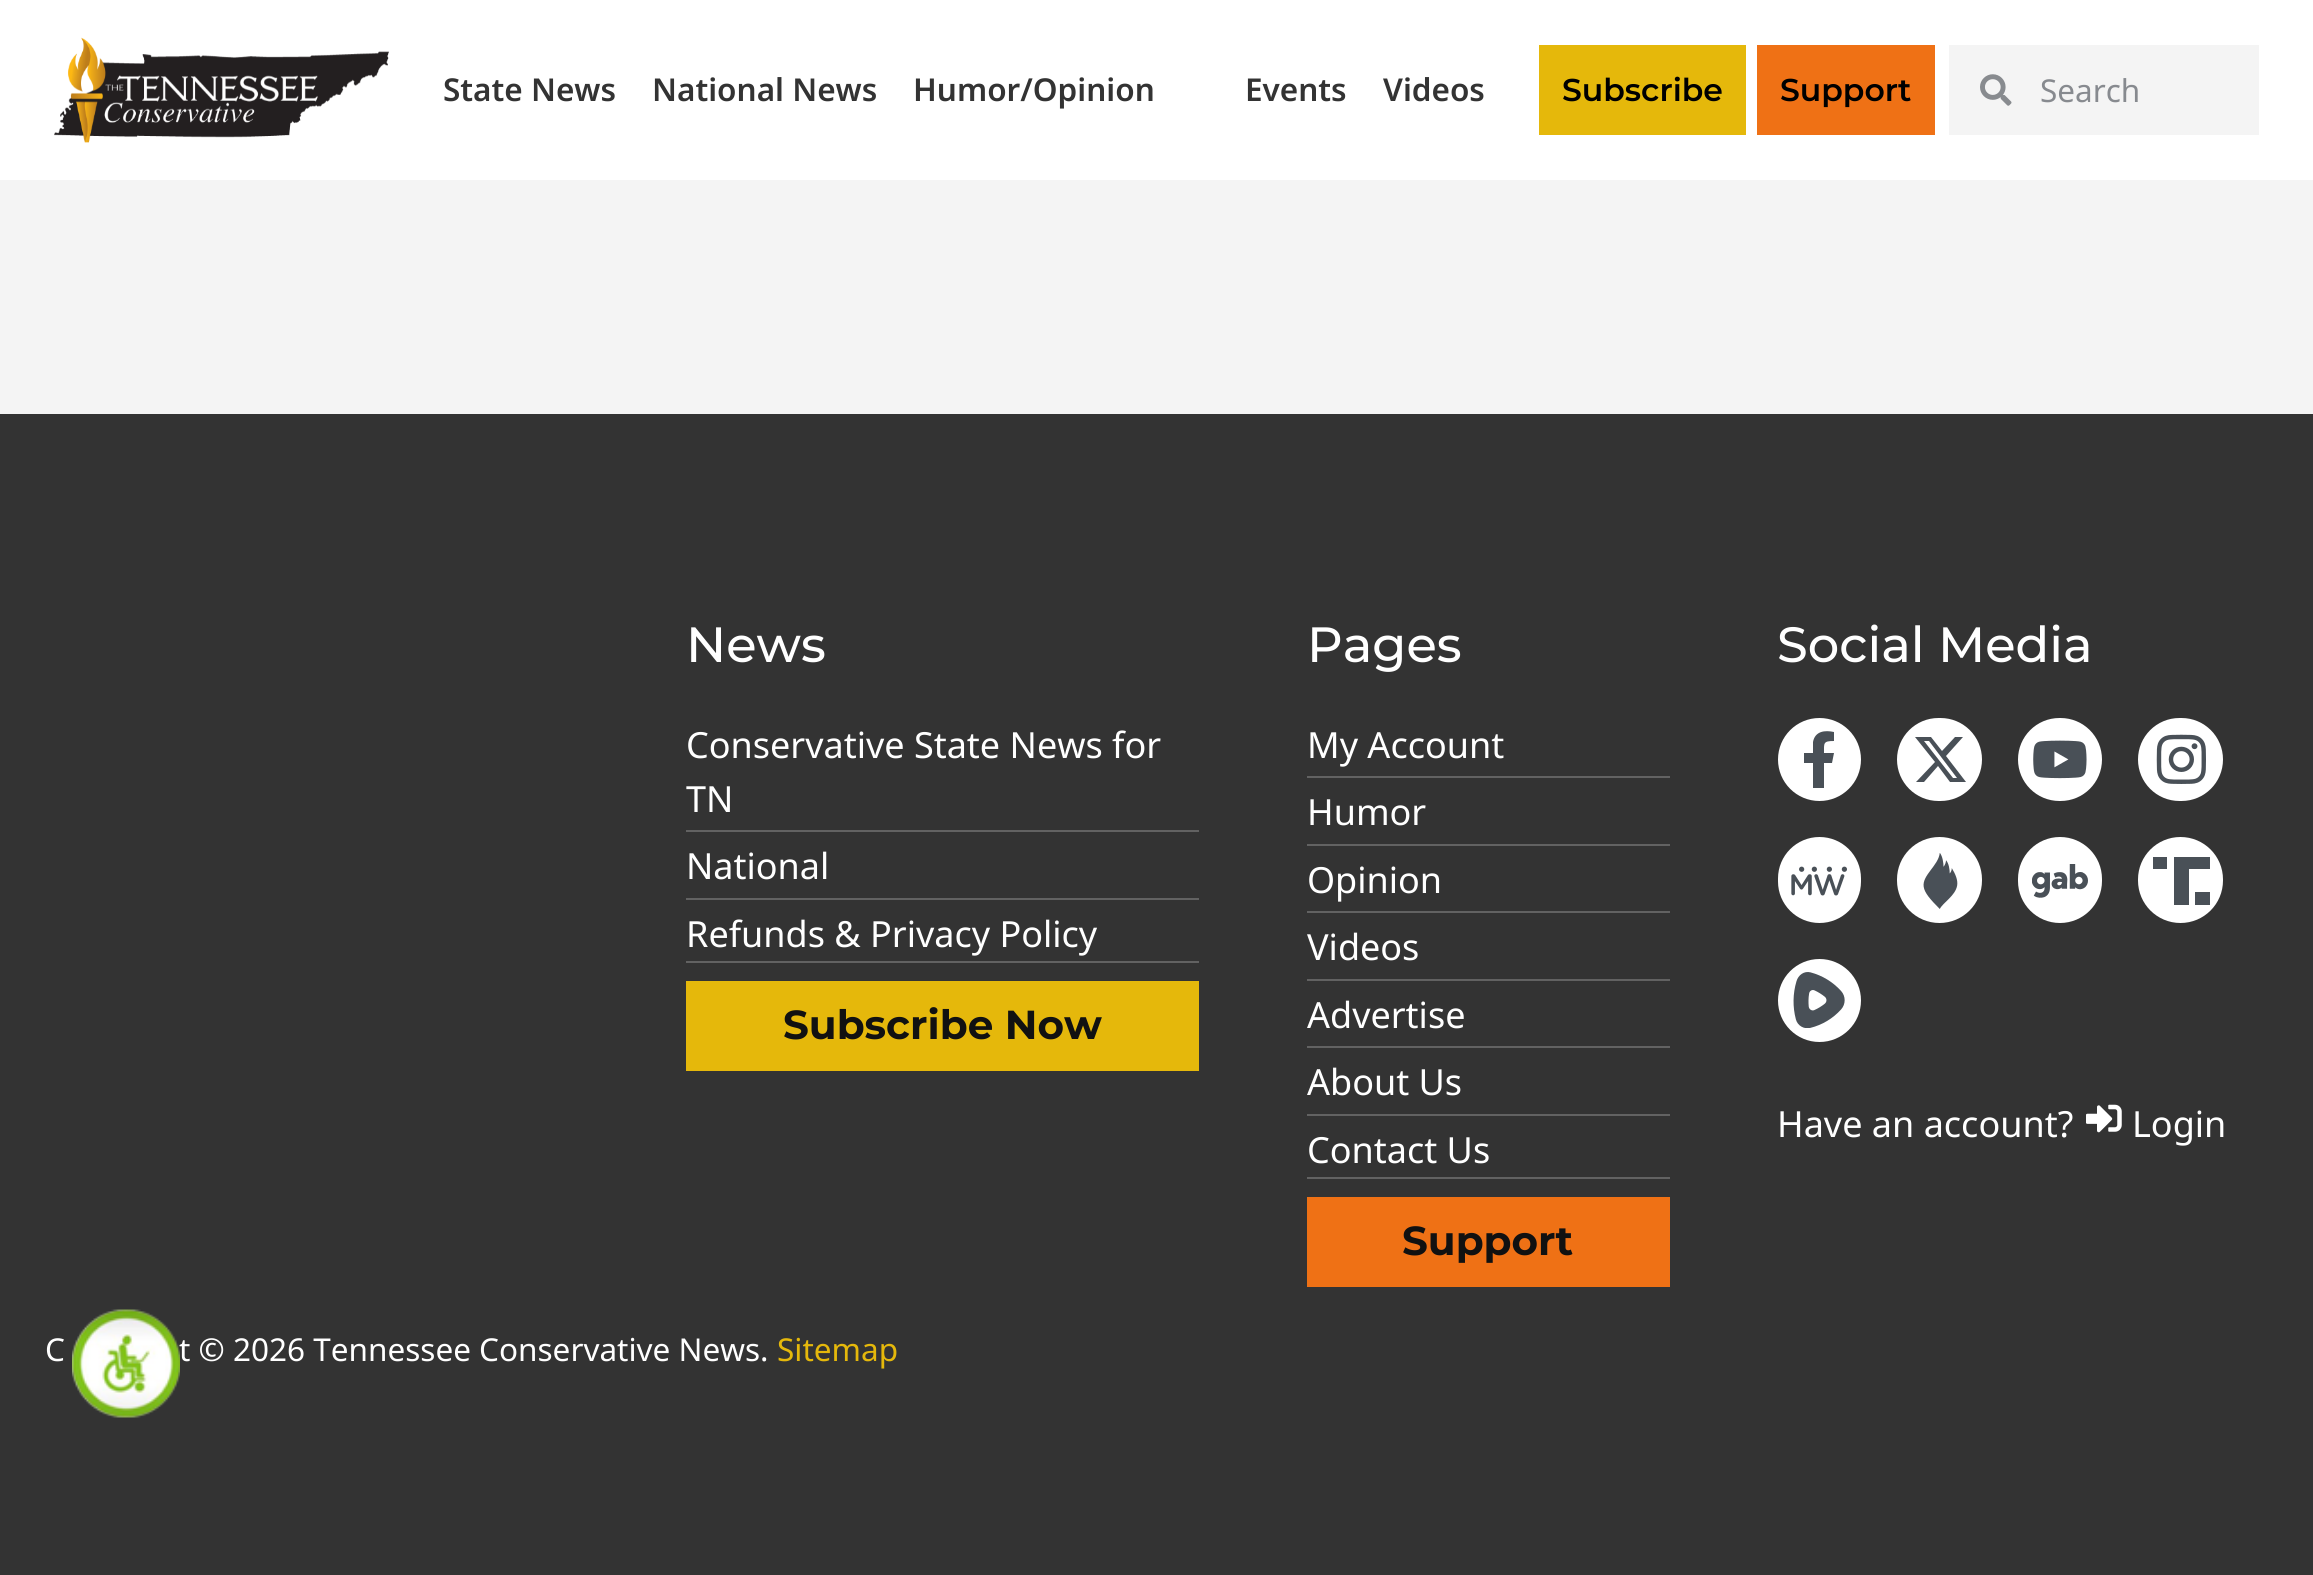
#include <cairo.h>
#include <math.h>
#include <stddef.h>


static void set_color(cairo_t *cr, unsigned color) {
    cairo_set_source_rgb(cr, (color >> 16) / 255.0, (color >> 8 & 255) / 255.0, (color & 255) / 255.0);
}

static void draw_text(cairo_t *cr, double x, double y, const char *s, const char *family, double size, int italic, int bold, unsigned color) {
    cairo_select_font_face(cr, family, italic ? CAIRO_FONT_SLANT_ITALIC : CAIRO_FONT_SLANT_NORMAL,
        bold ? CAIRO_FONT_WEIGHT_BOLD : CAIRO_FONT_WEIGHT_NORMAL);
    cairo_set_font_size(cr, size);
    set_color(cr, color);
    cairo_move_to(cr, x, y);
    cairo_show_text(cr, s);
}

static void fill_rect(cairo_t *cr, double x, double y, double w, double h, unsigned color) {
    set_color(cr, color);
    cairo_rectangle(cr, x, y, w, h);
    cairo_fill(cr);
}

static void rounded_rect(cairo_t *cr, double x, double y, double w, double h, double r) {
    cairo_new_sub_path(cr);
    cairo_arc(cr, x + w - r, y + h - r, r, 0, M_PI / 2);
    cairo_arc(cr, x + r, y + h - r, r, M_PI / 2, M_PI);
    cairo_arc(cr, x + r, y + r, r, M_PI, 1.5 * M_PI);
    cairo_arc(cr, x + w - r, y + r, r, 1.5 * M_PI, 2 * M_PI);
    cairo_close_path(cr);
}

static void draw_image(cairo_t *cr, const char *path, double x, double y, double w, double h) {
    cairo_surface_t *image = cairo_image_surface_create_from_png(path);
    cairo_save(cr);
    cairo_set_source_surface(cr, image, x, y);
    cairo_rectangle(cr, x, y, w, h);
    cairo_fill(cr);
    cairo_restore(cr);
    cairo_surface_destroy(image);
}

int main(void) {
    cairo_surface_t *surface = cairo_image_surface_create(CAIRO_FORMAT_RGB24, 2313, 1575);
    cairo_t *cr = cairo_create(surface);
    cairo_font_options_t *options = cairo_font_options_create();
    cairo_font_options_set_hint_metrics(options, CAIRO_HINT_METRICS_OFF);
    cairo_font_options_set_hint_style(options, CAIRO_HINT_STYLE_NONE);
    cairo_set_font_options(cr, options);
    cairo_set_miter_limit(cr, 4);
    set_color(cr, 0xF4F4F4);
    cairo_paint(cr);
    fill_rect(cr, 0, 0, 2313, 180, 0xFFFFFF);
    draw_image(cr, "assets/img1.png", 54, 37, 335, 106);
    draw_text(cr, 443, 101, "State News", "Noto Sans SemiBold", 31.5, 0, 0, 0x333333);
    draw_text(cr, 652, 101, "National News", "Noto Sans SemiBold", 31.5, 0, 0, 0x333333);
    draw_text(cr, 913, 101, "Humor/Opinion", "Noto Sans SemiBold", 31.5, 0, 0, 0x333333);
    draw_text(cr, 1245, 101, "Events", "Noto Sans SemiBold", 31.5, 0, 0, 0x333333);
    draw_text(cr, 1383, 101, "Videos", "Noto Sans SemiBold", 31.5, 0, 0, 0x333333);
    fill_rect(cr, 1539, 45, 207, 90, 0xE5B80B);
    draw_text(cr, 1562, 101, "Subscribe", "Montserrat SemiBold", 31.5, 0, 0, 0x000000);
    fill_rect(cr, 1757, 45, 178, 90, 0xEF7115);
    draw_text(cr, 1780, 101, "Support", "Montserrat SemiBold", 31.5, 0, 0, 0x000000);
    fill_rect(cr, 1949, 45, 310, 90, 0xF4F4F4);
    draw_image(cr, "assets/img2.png", 1980, 74, 32, 32);
    draw_text(cr, 2040, 102, "Search", "Noto Sans", 31.5, 0, 0, 0x878A8F);
    fill_rect(cr, 0, 414, 2313, 1161, 0x333333);
    draw_text(cr, 686, 662, "News", "Montserrat Medium", 49.5, 0, 0, 0xFFFFFF);
    fill_rect(cr, 686, 830, 513, 2, 0x626262);
    draw_text(cr, 686, 758, "Conservative State News for", "Noto Sans", 36, 0, 0, 0xFFFFFF);
    draw_text(cr, 686, 812, "TN", "Noto Sans", 36, 0, 0, 0xFFFFFF);
    fill_rect(cr, 686, 898, 513, 2, 0x626262);
    draw_text(cr, 686, 879, "National", "Noto Sans", 36, 0, 0, 0xFFFFFF);
    fill_rect(cr, 686, 961, 513, 2, 0x626262);
    draw_text(cr, 686, 947, "Refunds & Privacy Policy", "Noto Sans", 36, 0, 0, 0xFFFFFF);
    fill_rect(cr, 686, 981, 513, 90, 0xE5B80B);
    draw_text(cr, 783, 1039, "Subscribe Now", "Montserrat", 40.5, 0, 1, 0x111111);
    draw_text(cr, 1307, 662, "Pages", "Montserrat Medium", 49.5, 0, 0, 0xFFFFFF);
    fill_rect(cr, 1307, 776, 363, 2, 0x626262);
    draw_text(cr, 1307, 758, "My Account", "Noto Sans", 36, 0, 0, 0xFFFFFF);
    fill_rect(cr, 1307, 844, 363, 2, 0x626262);
    draw_text(cr, 1307, 825, "Humor", "Noto Sans", 36, 0, 0, 0xFFFFFF);
    fill_rect(cr, 1307, 911, 363, 2, 0x626262);
    draw_text(cr, 1307, 893, "Opinion", "Noto Sans", 36, 0, 0, 0xFFFFFF);
    fill_rect(cr, 1307, 979, 363, 2, 0x626262);
    draw_text(cr, 1307, 960, "Videos", "Noto Sans", 36, 0, 0, 0xFFFFFF);
    fill_rect(cr, 1307, 1046, 363, 2, 0x626262);
    draw_text(cr, 1307, 1028, "Advertise", "Noto Sans", 36, 0, 0, 0xFFFFFF);
    fill_rect(cr, 1307, 1114, 363, 2, 0x626262);
    draw_text(cr, 1307, 1095, "About Us", "Noto Sans", 36, 0, 0, 0xFFFFFF);
    fill_rect(cr, 1307, 1177, 363, 2, 0x626262);
    draw_text(cr, 1307, 1163, "Contact Us", "Noto Sans", 36, 0, 0, 0xFFFFFF);
    fill_rect(cr, 1307, 1197, 363, 90, 0xEF7115);
    draw_text(cr, 1402, 1255, "Support", "Montserrat", 40.5, 0, 1, 0x111111);
    draw_text(cr, 1777, 662, "Social Media", "Montserrat Medium", 49.5, 0, 0, 0xFFFFFF);
    cairo_new_path(cr);
    cairo_arc(cr, 1819.5, 759.5, 41.5, 0, 2 * M_PI);
    cairo_fill(cr);
    set_color(cr, 0x495057);
    cairo_new_path(cr);
    cairo_move_to(cr, 1832, 763);
    cairo_line_to(cr, 1834, 753);
    cairo_line_to(cr, 1824, 753);
    cairo_curve_to(cr, 1824, 743, 1823, 741, 1834, 741);
    cairo_line_to(cr, 1834, 732);
    cairo_curve_to(cr, 1825, 730, 1815, 731, 1813, 742);
    cairo_line_to(cr, 1813, 753);
    cairo_line_to(cr, 1804, 753);
    cairo_line_to(cr, 1804, 763);
    cairo_line_to(cr, 1813, 763);
    cairo_line_to(cr, 1813, 788);
    cairo_line_to(cr, 1824, 788);
    cairo_line_to(cr, 1824, 763);
    cairo_close_path(cr);
    cairo_fill(cr);
    set_color(cr, 0xFFFFFF);
    rounded_rect(cr, 1897, 718, 85, 83, 41.5);
    cairo_fill(cr);
    set_color(cr, 0x495057);
    cairo_new_path(cr);
    cairo_move_to(cr, 1955, 737);
    cairo_line_to(cr, 1963, 737);
    cairo_line_to(cr, 1946, 756);
    cairo_line_to(cr, 1966, 782);
    cairo_line_to(cr, 1950, 782);
    cairo_line_to(cr, 1938, 766);
    cairo_line_to(cr, 1924, 782);
    cairo_line_to(cr, 1916, 782);
    cairo_line_to(cr, 1935, 762);
    cairo_line_to(cr, 1915, 737);
    cairo_line_to(cr, 1931, 737);
    cairo_line_to(cr, 1942, 751);
    cairo_close_path(cr);
    cairo_move_to(cr, 1953, 778);
    cairo_line_to(cr, 1957, 778);
    cairo_line_to(cr, 1929, 741);
    cairo_line_to(cr, 1924, 741);
    cairo_close_path(cr);
    cairo_fill(cr);
    set_color(cr, 0xFFFFFF);
    rounded_rect(cr, 2018, 718, 84, 83, 41.5);
    cairo_fill(cr);
    draw_image(cr, "assets/img3.png", 2033, 740, 54, 39);
    rounded_rect(cr, 2138, 718, 85, 83, 41.5);
    cairo_fill(cr);
    draw_image(cr, "assets/img4.png", 2156, 734, 50, 50);
    rounded_rect(cr, 1778, 837, 83, 86, 41.5);
    cairo_fill(cr);
    draw_image(cr, "assets/img5.png", 1791, 866, 56, 30);
    rounded_rect(cr, 1897, 837, 85, 86, 42.5);
    cairo_fill(cr);
    draw_image(cr, "assets/img6.png", 1923, 853, 35, 56);
    rounded_rect(cr, 2018, 837, 84, 86, 42);
    cairo_fill(cr);
    draw_image(cr, "assets/img7.png", 2032, 864, 56, 34);
    rounded_rect(cr, 2138, 837, 85, 86, 42.5);
    cairo_fill(cr);
    set_color(cr, 0x495057);
    cairo_set_fill_rule(cr, CAIRO_FILL_RULE_EVEN_ODD);
    cairo_new_path(cr);
    cairo_move_to(cr, 2195, 905);
    cairo_line_to(cr, 2195, 892);
    cairo_line_to(cr, 2210, 892);
    cairo_line_to(cr, 2210, 905);
    cairo_close_path(cr);
    cairo_move_to(cr, 2189, 905);
    cairo_line_to(cr, 2174, 905);
    cairo_line_to(cr, 2174, 857);
    cairo_line_to(cr, 2210, 857);
    cairo_line_to(cr, 2210, 869);
    cairo_line_to(cr, 2189, 869);
    cairo_close_path(cr);
    cairo_move_to(cr, 2153, 857);
    cairo_line_to(cr, 2167, 857);
    cairo_line_to(cr, 2167, 869);
    cairo_line_to(cr, 2153, 869);
    cairo_close_path(cr);
    cairo_fill(cr);
    set_color(cr, 0xFFFFFF);
    cairo_arc(cr, 1819.5, 1000.5, 41.5, 0, 2 * M_PI);
    cairo_fill(cr);
    draw_image(cr, "assets/img8.png", 1793, 972, 52, 56);
    draw_text(cr, 1777, 1137, "Have an account?", "Noto Sans", 36, 0, 0, 0xFFFFFF);
    draw_image(cr, "assets/img9.png", 2086, 1104, 36, 29);
    draw_text(cr, 2132, 1137, "Login", "Noto Sans", 36, 0, 0, 0xFFFFFF);
    draw_text(cr, 45, 1361, "C", "Noto Sans", 31.5, 0, 0, 0xFFFFFF);
    draw_text(cr, 179, 1361, "t © 2026 Tennessee Conservative News.", "Noto Sans", 31.5, 0, 0, 0xFFFFFF);
    draw_text(cr, 777, 1361, "Sitemap", "Noto Sans", 31.5, 0, 0, 0xE5B80B);
    draw_image(cr, "assets/img10.png", 72, 1309, 108, 109);
    cairo_surface_write_to_png(surface, "output.png");
    cairo_font_options_destroy(options);
    cairo_destroy(cr);
    cairo_surface_destroy(surface);
    return 0;
}
